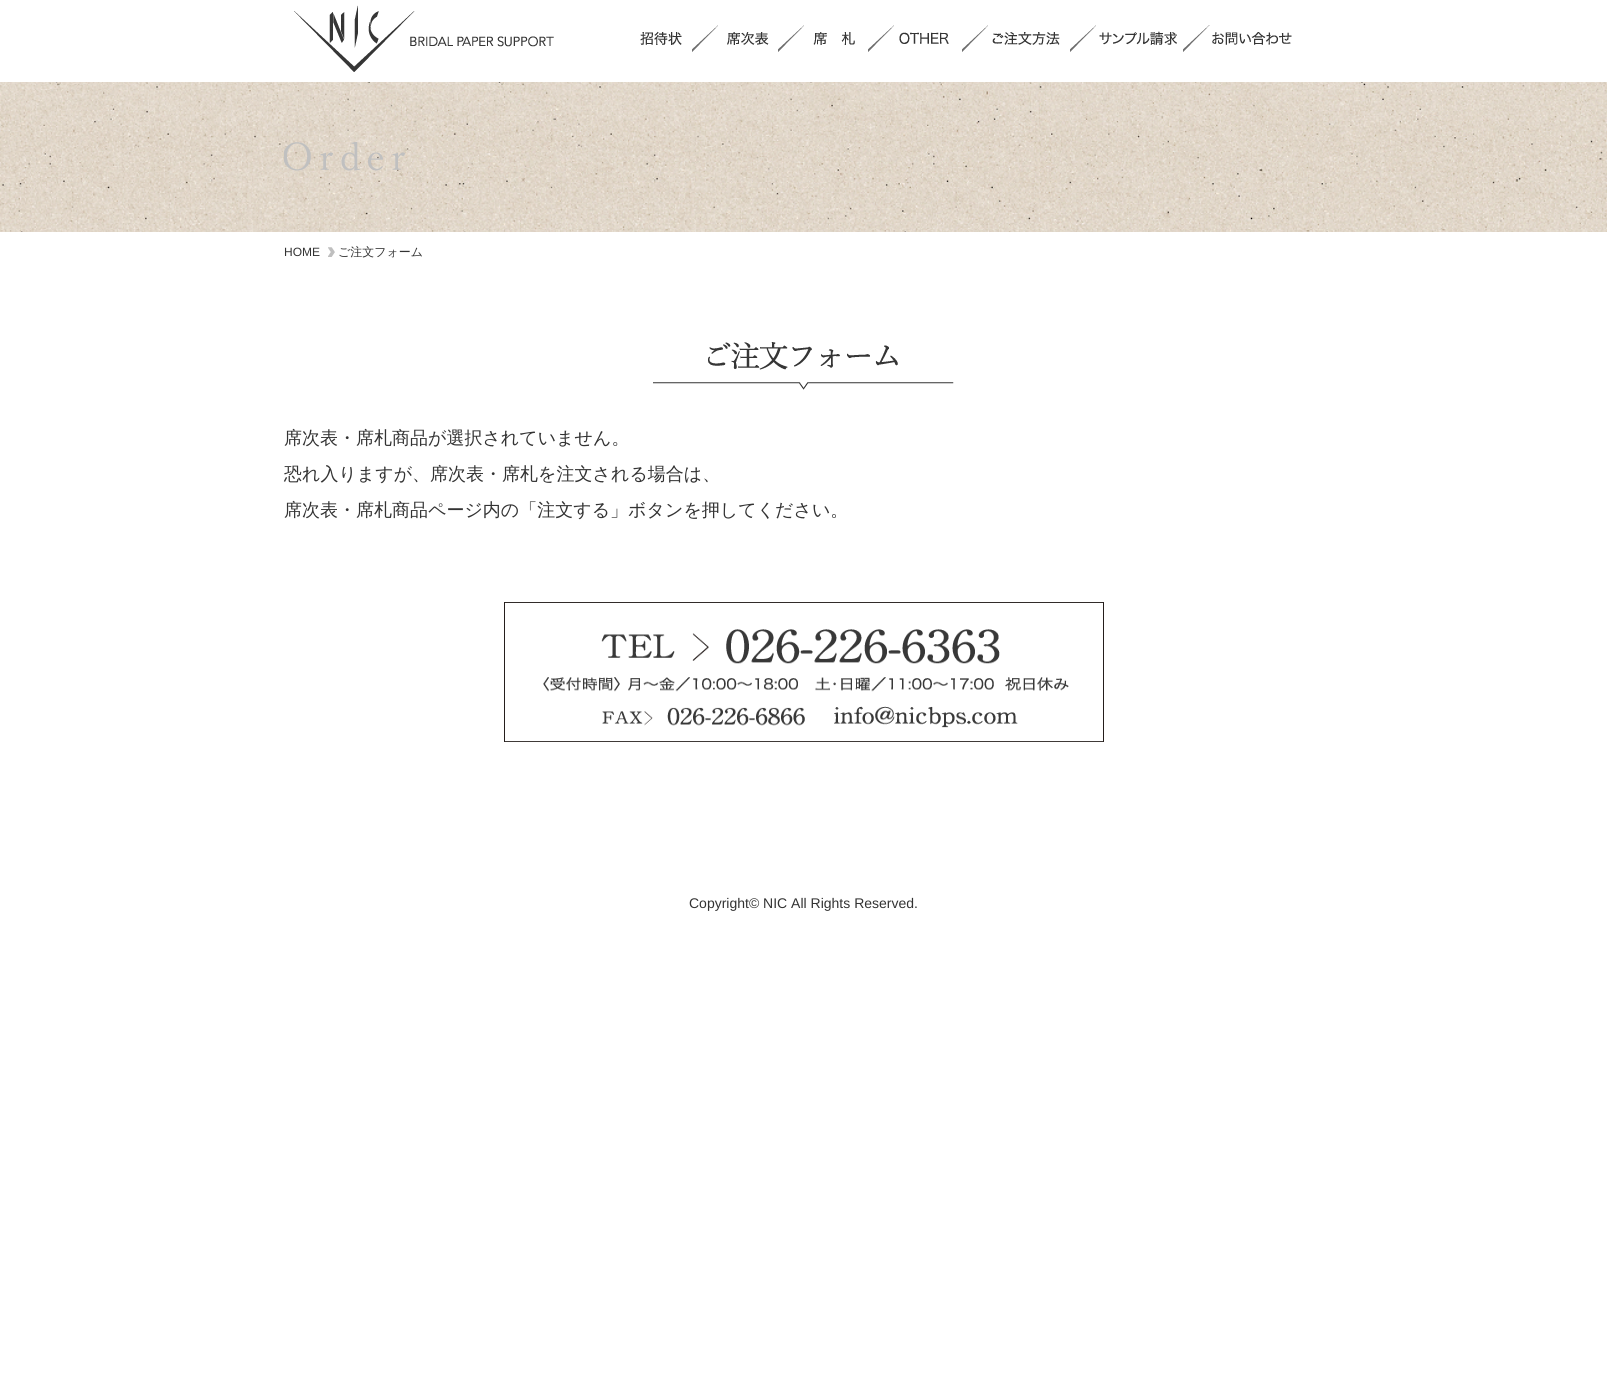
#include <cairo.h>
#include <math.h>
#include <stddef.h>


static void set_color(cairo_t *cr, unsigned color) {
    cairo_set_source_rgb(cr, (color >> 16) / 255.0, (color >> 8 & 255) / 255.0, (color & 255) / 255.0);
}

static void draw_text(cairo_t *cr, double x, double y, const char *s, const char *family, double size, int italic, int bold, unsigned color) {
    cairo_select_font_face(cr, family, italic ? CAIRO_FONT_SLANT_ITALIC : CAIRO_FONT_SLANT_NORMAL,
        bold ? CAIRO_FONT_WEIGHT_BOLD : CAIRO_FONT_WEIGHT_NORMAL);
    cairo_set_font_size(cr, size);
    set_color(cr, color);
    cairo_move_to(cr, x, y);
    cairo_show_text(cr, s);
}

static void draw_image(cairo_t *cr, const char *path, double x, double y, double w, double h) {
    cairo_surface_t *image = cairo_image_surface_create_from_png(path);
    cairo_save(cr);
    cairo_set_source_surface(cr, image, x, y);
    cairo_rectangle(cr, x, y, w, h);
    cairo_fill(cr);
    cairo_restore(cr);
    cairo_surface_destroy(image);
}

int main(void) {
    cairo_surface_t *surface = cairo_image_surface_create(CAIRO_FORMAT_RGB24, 1607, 1388);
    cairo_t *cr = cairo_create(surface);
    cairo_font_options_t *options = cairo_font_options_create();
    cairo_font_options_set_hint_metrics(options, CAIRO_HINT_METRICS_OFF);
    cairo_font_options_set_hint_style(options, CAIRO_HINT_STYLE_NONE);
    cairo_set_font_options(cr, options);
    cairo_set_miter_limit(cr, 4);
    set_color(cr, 0xFFFFFF);
    cairo_paint(cr);
    draw_image(cr, "assets/img1.png", 294, 5, 260, 67);
    draw_image(cr, "assets/img2.png", 640, 31, 42, 14);
    draw_image(cr, "assets/img3.png", 692, 25, 26, 27);
    draw_image(cr, "assets/img4.png", 727, 32, 42, 13);
    draw_image(cr, "assets/img3.png", 778, 25, 26, 27);
    draw_image(cr, "assets/img5.png", 813, 32, 42, 13);
    draw_image(cr, "assets/img3.png", 868, 25, 26, 27);
    draw_image(cr, "assets/img6.png", 899, 32, 50, 12);
    draw_image(cr, "assets/img3.png", 962, 25, 26, 27);
    draw_image(cr, "assets/img7.png", 992, 32, 68, 13);
    draw_image(cr, "assets/img3.png", 1070, 25, 26, 27);
    draw_image(cr, "assets/img8.png", 1099, 31, 78, 14);
    draw_image(cr, "assets/img3.png", 1183, 25, 26, 27);
    draw_image(cr, "assets/img9.png", 1209, 25, 83, 20);
    draw_image(cr, "assets/img10.png", 0, 82, 1607, 150);
    draw_image(cr, "assets/img11.png", 284, 142, 121, 29);
    draw_image(cr, "assets/img12.png", 328, 247, 7, 10);
    draw_text(cr, 284, 256, "HOME", "Liberation Sans", 12, 0, 0, 0x333333);
    draw_text(cr, 338, 256, "ご注文フォーム", "WenQuanYi Zen Hei Medium", 12, 0, 0, 0x333333);
    draw_image(cr, "assets/img13.png", 653, 342, 301, 48);
    draw_text(cr, 284, 444, "席次表・席札商品が選択されていません。", "WenQuanYi Zen Hei Medium", 18, 0, 0, 0x333333);
    draw_text(cr, 284, 480, "恐れ入りますが、席次表・席札を注文される場合は、", "WenQuanYi Zen Hei Medium", 18, 0, 0, 0x333333);
    draw_text(cr, 284, 516, "席次表・席札商品ページ内の「注文する」ボタンを押してください。", "WenQuanYi Zen Hei Medium", 18, 0, 0, 0x333333);
    draw_image(cr, "assets/img14.png", 504, 602, 600, 140);
    draw_text(cr, 689, 908, "Copyright© NIC All Rights Reserved.", "Liberation Sans", 14, 0, 0, 0x333333);
    cairo_surface_write_to_png(surface, "output.png");
    cairo_font_options_destroy(options);
    cairo_destroy(cr);
    cairo_surface_destroy(surface);
    return 0;
}
